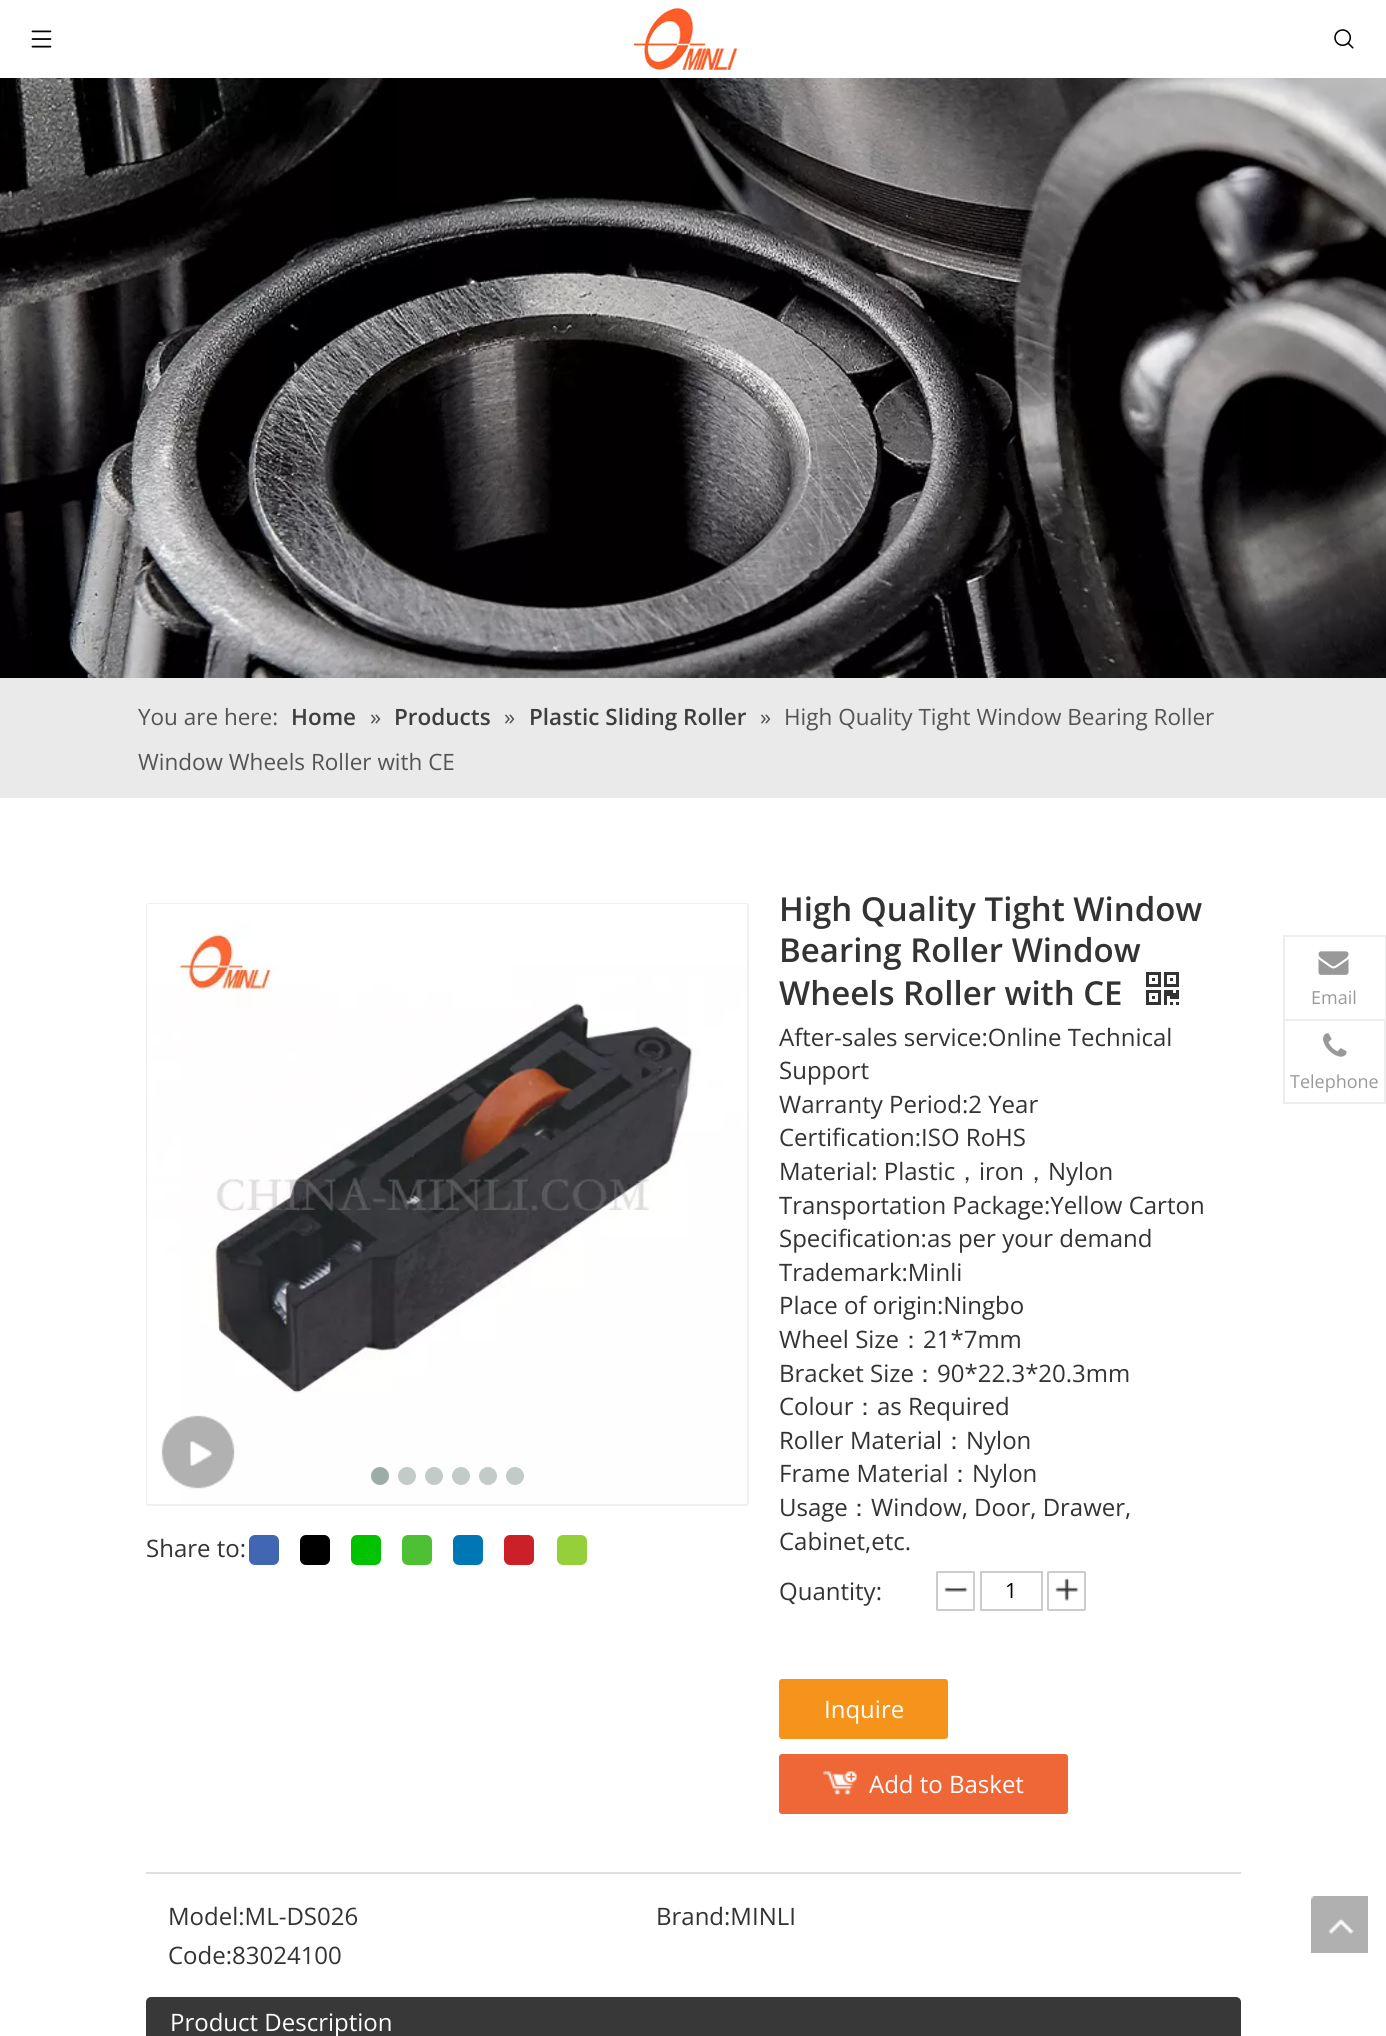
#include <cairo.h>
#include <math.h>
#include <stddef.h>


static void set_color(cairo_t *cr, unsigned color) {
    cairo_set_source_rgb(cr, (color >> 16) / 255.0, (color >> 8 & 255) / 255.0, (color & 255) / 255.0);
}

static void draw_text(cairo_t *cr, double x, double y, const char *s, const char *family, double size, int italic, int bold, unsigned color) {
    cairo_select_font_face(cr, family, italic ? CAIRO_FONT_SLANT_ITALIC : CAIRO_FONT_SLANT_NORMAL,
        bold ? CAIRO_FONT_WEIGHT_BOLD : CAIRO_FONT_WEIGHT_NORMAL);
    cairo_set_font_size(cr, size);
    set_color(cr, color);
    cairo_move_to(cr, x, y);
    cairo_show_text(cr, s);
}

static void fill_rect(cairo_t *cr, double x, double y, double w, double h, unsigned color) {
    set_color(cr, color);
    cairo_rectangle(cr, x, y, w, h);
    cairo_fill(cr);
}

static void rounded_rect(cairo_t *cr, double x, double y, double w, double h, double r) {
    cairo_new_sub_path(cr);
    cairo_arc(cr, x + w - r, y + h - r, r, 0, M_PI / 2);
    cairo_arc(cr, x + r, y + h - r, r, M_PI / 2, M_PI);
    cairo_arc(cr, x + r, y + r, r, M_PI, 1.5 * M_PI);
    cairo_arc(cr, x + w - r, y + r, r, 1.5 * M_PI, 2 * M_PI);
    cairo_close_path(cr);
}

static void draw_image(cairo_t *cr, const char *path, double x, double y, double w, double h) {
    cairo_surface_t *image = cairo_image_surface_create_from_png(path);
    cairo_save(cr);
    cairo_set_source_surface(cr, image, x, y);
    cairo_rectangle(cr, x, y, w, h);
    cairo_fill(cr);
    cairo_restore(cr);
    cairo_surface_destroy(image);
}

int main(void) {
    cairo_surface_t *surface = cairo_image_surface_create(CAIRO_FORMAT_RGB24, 1386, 2036);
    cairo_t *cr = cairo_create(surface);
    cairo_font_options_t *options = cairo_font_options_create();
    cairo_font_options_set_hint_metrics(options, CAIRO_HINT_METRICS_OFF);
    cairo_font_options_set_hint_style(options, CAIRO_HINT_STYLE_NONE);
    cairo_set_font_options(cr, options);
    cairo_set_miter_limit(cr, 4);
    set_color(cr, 0xFFFFFF);
    cairo_paint(cr);
    draw_image(cr, "assets/img1.png", 31, 30, 21, 18);
    draw_image(cr, "assets/img2.png", 633, 8, 105, 62);
    draw_image(cr, "assets/img3.png", 1334, 29, 20, 20);
    draw_image(cr, "assets/img4.png", 0, 78, 1386, 600);
    fill_rect(cr, 0, 678, 1386, 120, 0xEAEAEA);
    draw_text(cr, 138, 725, "You are here:", "Open Sans", 22.5, 0, 0, 0x545454);
    draw_text(cr, 291, 725, "Home", "Open Sans SemiBold", 22.5, 0, 0, 0x3E3E3E);
    draw_text(cr, 370, 725, "»", "Open Sans", 22.5, 0, 0, 0x545454);
    draw_text(cr, 394, 725, "Products", "Open Sans SemiBold", 22.5, 0, 0, 0x3E3E3E);
    draw_text(cr, 504, 725, "»", "Open Sans", 22.5, 0, 0, 0x545454);
    draw_text(cr, 529, 725, "Plastic Sliding Roller", "Open Sans SemiBold", 22.5, 0, 0, 0x3E3E3E);
    draw_text(cr, 760, 725, "»", "Open Sans", 22.5, 0, 0, 0x545454);
    draw_text(cr, 784, 725, "High Quality Tight Window Bearing Roller", "Open Sans", 22.5, 0, 0, 0x545454);
    draw_text(cr, 138, 770, "Window Wheels Roller with CE", "Open Sans", 22.5, 0, 0, 0x545454);
    rounded_rect(cr, 147, 904, 601, 601, 2);
    set_color(cr, 0xEFEFEF);
    cairo_stroke(cr);
    draw_image(cr, "assets/img5.png", 147, 904, 600, 600);
    set_color(cr, 0x9EACA7);
    cairo_arc(cr, 380, 1476, 9, 0, 2 * M_PI);
    cairo_fill(cr);
    set_color(cr, 0xC3CBC8);
    cairo_arc(cr, 407, 1476, 9, 0, 2 * M_PI);
    cairo_fill(cr);
    cairo_arc(cr, 434, 1476, 9, 0, 2 * M_PI);
    cairo_fill(cr);
    cairo_arc(cr, 461, 1476, 9, 0, 2 * M_PI);
    cairo_fill(cr);
    cairo_arc(cr, 488, 1476, 9, 0, 2 * M_PI);
    cairo_fill(cr);
    cairo_arc(cr, 515, 1476, 9, 0, 2 * M_PI);
    cairo_fill(cr);
    draw_image(cr, "assets/img6.png", 161, 1415, 74, 74);
    draw_text(cr, 146, 1557, "Share to:", "Open Sans", 24, 0, 0, 0x333333);
    set_color(cr, 0x4267B2);
    rounded_rect(cr, 249, 1535, 30, 30, 6);
    cairo_fill(cr);
    set_color(cr, 0x000000);
    rounded_rect(cr, 300, 1535, 30, 30, 6);
    cairo_fill(cr);
    set_color(cr, 0x00C300);
    rounded_rect(cr, 351, 1535, 30, 30, 6);
    cairo_fill(cr);
    set_color(cr, 0x4EC034);
    rounded_rect(cr, 402, 1535, 30, 30, 6);
    cairo_fill(cr);
    set_color(cr, 0x0077B5);
    rounded_rect(cr, 453, 1535, 30, 30, 6);
    cairo_fill(cr);
    set_color(cr, 0xCB2027);
    rounded_rect(cr, 504, 1535, 30, 30, 6);
    cairo_fill(cr);
    set_color(cr, 0x95D03A);
    rounded_rect(cr, 557, 1535, 30, 30, 6);
    cairo_fill(cr);
    draw_text(cr, 779, 921, "High Quality Tight Window", "Open Sans SemiBold", 33, 0, 0, 0x333333);
    draw_text(cr, 779, 962, "Bearing Roller Window", "Open Sans SemiBold", 33, 0, 0, 0x333333);
    draw_text(cr, 779, 1005, "Wheels Roller with CE", "Open Sans SemiBold", 33, 0, 0, 0x333333);
    draw_image(cr, "assets/img7.png", 1146, 972, 33, 33);
    draw_text(cr, 779, 1046, "After-sales service:Online Technical", "Open Sans", 24, 0, 0, 0x333333);
    draw_text(cr, 779, 1079, "Support", "Open Sans", 24, 0, 0, 0x333333);
    draw_text(cr, 779, 1113, "Warranty Period:2 Year", "Open Sans", 24, 0, 0, 0x333333);
    draw_text(cr, 779, 1146, "Certification:ISO RoHS", "Open Sans", 24, 0, 0, 0x333333);
    draw_text(cr, 779, 1180, "Material: Plastic", "Open Sans", 24, 0, 0, 0x333333);
    draw_text(cr, 955, 1180, "，", "WenQuanYi Zen Hei Medium", 24, 0, 0, 0x333333);
    draw_text(cr, 979, 1180, "iron", "Open Sans", 24, 0, 0, 0x333333);
    draw_text(cr, 1024, 1180, "，", "WenQuanYi Zen Hei Medium", 24, 0, 0, 0x333333);
    draw_text(cr, 1048, 1180, "Nylon", "Open Sans", 24, 0, 0, 0x333333);
    draw_text(cr, 779, 1214, "Transportation Package:Yellow Carton", "Open Sans", 24, 0, 0, 0x333333);
    draw_text(cr, 779, 1247, "Specification:as per your demand", "Open Sans", 24, 0, 0, 0x333333);
    draw_text(cr, 779, 1281, "Trademark:Minli", "Open Sans", 24, 0, 0, 0x333333);
    draw_text(cr, 779, 1314, "Place of origin:Ningbo", "Open Sans", 24, 0, 0, 0x333333);
    draw_text(cr, 779, 1348, "Wheel Size", "Open Sans", 24, 0, 0, 0x333333);
    draw_text(cr, 899, 1348, "：", "WenQuanYi Zen Hei Medium", 24, 0, 0, 0x333333);
    draw_text(cr, 923, 1348, "21*7mm", "Open Sans", 24, 0, 0, 0x333333);
    draw_text(cr, 779, 1382, "Bracket Size", "Open Sans", 24, 0, 0, 0x333333);
    draw_text(cr, 913, 1382, "：", "WenQuanYi Zen Hei Medium", 24, 0, 0, 0x333333);
    draw_text(cr, 937, 1382, "90*22.3*20.3mm", "Open Sans", 24, 0, 0, 0x333333);
    draw_text(cr, 779, 1415, "Colour", "Open Sans", 24, 0, 0, 0x333333);
    draw_text(cr, 853, 1415, "：", "WenQuanYi Zen Hei Medium", 24, 0, 0, 0x333333);
    draw_text(cr, 877, 1415, "as Required", "Open Sans", 24, 0, 0, 0x333333);
    draw_text(cr, 779, 1449, "Roller Material", "Open Sans", 24, 0, 0, 0x333333);
    draw_text(cr, 942, 1449, "：", "WenQuanYi Zen Hei Medium", 24, 0, 0, 0x333333);
    draw_text(cr, 966, 1449, "Nylon", "Open Sans", 24, 0, 0, 0x333333);
    draw_text(cr, 779, 1482, "Frame Material", "Open Sans", 24, 0, 0, 0x333333);
    draw_text(cr, 948, 1482, "：", "WenQuanYi Zen Hei Medium", 24, 0, 0, 0x333333);
    draw_text(cr, 972, 1482, "Nylon", "Open Sans", 24, 0, 0, 0x333333);
    draw_text(cr, 779, 1516, "Usage", "Open Sans", 24, 0, 0, 0x333333);
    draw_text(cr, 847, 1516, "：", "WenQuanYi Zen Hei Medium", 24, 0, 0, 0x333333);
    draw_text(cr, 871, 1516, "Window, Door, Drawer,", "Open Sans", 24, 0, 0, 0x333333);
    draw_text(cr, 779, 1550, "Cabinet,etc.", "Open Sans", 24, 0, 0, 0x333333);
    draw_text(cr, 779, 1600, "Quantity:", "Open Sans", 24, 0, 0, 0x333333);
    draw_image(cr, "assets/img8.png", 944, 1587, 24, 5);
    rounded_rect(cr, 937, 1572, 37, 38, 0.5);
    set_color(cr, 0xCCCCCC);
    cairo_stroke(cr);
    cairo_rectangle(cr, 981, 1572, 61, 38);
    cairo_stroke(cr);
    draw_text(cr, 1005, 1598, "1", "Open Sans", 21, 0, 0, 0x000000);
    draw_image(cr, "assets/img9.png", 1055, 1578, 24, 23);
    rounded_rect(cr, 1048, 1572, 37, 38, 0.5);
    set_color(cr, 0xCCCCCC);
    cairo_stroke(cr);
    set_color(cr, 0xF6931B);
    rounded_rect(cr, 779, 1679, 169, 60, 3);
    cairo_fill(cr);
    draw_text(cr, 824, 1718, "Inquire", "Open Sans", 24, 0, 0, 0xFFFFFF);
    set_color(cr, 0xEF6737);
    rounded_rect(cr, 779, 1754, 289, 60, 3);
    cairo_fill(cr);
    draw_image(cr, "assets/img10.png", 823, 1771, 34, 24);
    draw_text(cr, 869, 1793, "Add to Basket", "Open Sans", 24, 0, 0, 0xFFFFFF);
    fill_rect(cr, 146, 1872, 1095, 2, 0xDFDFDF);
    draw_text(cr, 168, 1925, "Model:ML-DS026", "Open Sans", 24, 0, 0, 0x333333);
    draw_text(cr, 656, 1925, "Brand:MINLI", "Open Sans", 24, 0, 0, 0x333333);
    draw_text(cr, 168, 1964, "Code:83024100", "Open Sans", 24, 0, 0, 0x333333);
    set_color(cr, 0x383838);
    rounded_rect(cr, 147, 1998, 1093, 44, 4);
    cairo_fill_preserve(cr);
    cairo_stroke(cr);
    draw_text(cr, 170, 2031, "Product Description", "Open Sans", 24, 0, 0, 0xFFFFFF);
    fill_rect(cr, 1283, 935, 103, 2, 0xEEEEEE);
    fill_rect(cr, 1385, 935, 1, 84, 0xEEEEEE);
    fill_rect(cr, 1283, 935, 2, 84, 0xEEEEEE);
    draw_image(cr, "assets/img11.png", 1318, 951, 31, 24);
    draw_text(cr, 1311, 1004, "Email", "Open Sans", 18, 0, 0, 0x999999);
    cairo_rectangle(cr, 1284, 1020, 101, 83);
    set_color(cr, 0xEEEEEE);
    cairo_stroke(cr);
    draw_image(cr, "assets/img12.png", 1323, 1033, 24, 24);
    draw_text(cr, 1290, 1088, "Telephone", "Open Sans", 18, 0, 0, 0x999999);
    draw_image(cr, "assets/img13.png", 1311, 1896, 57, 57);
    cairo_surface_write_to_png(surface, "output.png");
    cairo_font_options_destroy(options);
    cairo_destroy(cr);
    cairo_surface_destroy(surface);
    return 0;
}
